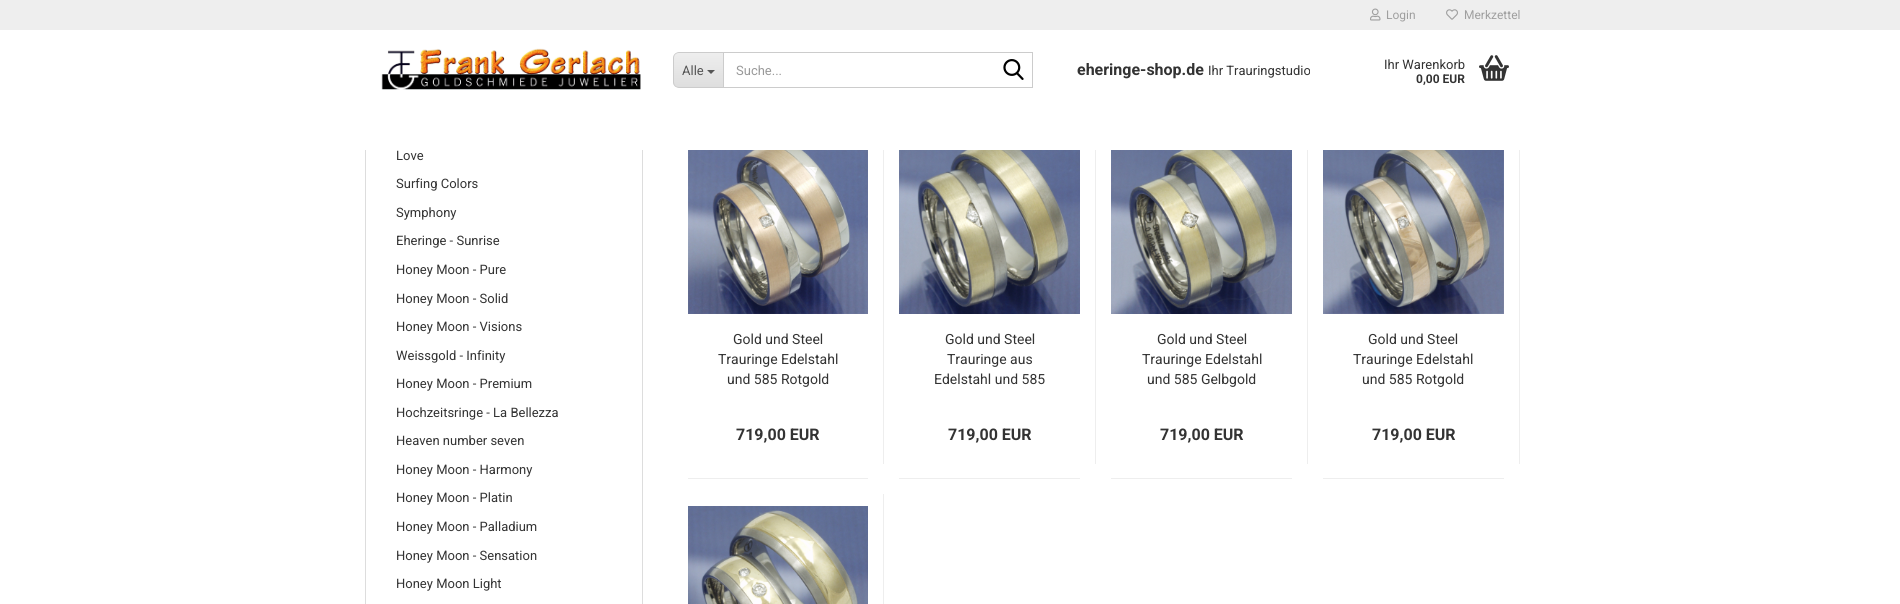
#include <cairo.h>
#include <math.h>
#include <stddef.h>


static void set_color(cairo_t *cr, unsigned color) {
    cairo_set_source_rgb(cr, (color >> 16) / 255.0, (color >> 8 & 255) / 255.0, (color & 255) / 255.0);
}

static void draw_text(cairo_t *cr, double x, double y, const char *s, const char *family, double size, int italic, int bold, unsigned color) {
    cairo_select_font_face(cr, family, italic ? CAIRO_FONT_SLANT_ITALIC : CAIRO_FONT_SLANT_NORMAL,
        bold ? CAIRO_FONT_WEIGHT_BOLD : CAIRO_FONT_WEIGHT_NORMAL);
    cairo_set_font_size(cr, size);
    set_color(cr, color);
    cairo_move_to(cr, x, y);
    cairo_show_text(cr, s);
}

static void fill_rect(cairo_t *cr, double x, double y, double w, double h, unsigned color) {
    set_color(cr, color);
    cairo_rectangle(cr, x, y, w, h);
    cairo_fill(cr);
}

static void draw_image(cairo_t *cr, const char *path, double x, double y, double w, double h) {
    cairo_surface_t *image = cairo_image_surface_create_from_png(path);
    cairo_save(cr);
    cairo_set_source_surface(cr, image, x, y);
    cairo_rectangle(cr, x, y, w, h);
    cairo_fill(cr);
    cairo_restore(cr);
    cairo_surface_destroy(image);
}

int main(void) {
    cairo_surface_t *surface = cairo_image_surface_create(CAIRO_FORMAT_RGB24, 1900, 604);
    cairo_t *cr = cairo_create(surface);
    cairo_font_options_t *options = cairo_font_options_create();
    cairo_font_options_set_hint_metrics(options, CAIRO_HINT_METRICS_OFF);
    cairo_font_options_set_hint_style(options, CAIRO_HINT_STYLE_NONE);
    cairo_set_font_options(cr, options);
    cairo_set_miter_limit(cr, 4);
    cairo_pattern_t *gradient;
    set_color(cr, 0xFFFFFF);
    cairo_paint(cr);
    fill_rect(cr, 0, 0, 1900, 30, 0xEEEEEE);
    draw_image(cr, "assets/img1.png", 1370, 8, 11, 13);
    draw_text(cr, 1386, 19, "Login", "Roboto", 12, 0, 0, 0x9F9F9F);
    draw_image(cr, "assets/img2.png", 1446, 9, 12, 11);
    draw_text(cr, 1464, 19, "Merkzettel", "Roboto", 12, 0, 0, 0x9F9F9F);
    draw_image(cr, "assets/img3.png", 381, 48, 260, 42);
    cairo_save(cr);
    cairo_new_path(cr);
    cairo_move_to(cr, 679, 52);
    cairo_line_to(cr, 723, 52);
    cairo_line_to(cr, 723, 88);
    cairo_line_to(cr, 679, 88);
    cairo_curve_to(cr, 675.5, 88, 673, 85.5, 673, 82);
    cairo_line_to(cr, 673, 58);
    cairo_curve_to(cr, 673, 54.5, 675.5, 52, 679, 52);
    cairo_close_path(cr);
    cairo_clip(cr);
    gradient = cairo_pattern_create_linear(699, 53, 699, 87);
    cairo_pattern_add_color_stop_rgba(gradient, 0, 0.933, 0.933, 0.933, 1);
    cairo_pattern_add_color_stop_rgba(gradient, 1, 0.871, 0.871, 0.871, 1);
    cairo_set_source(cr, gradient);
    cairo_pattern_destroy(gradient);
    cairo_rectangle(cr, 673, 53, 50, 34);
    cairo_fill(cr);
    cairo_restore(cr);
    set_color(cr, 0xCCCCCC);
    cairo_set_fill_rule(cr, CAIRO_FILL_RULE_EVEN_ODD);
    cairo_new_path(cr);
    cairo_move_to(cr, 679, 52);
    cairo_line_to(cr, 723, 52);
    cairo_line_to(cr, 723, 88);
    cairo_line_to(cr, 679, 88);
    cairo_curve_to(cr, 676, 88, 673, 85, 673, 82);
    cairo_line_to(cr, 673, 58);
    cairo_curve_to(cr, 673, 55, 676, 52, 679, 52);
    cairo_close_path(cr);
    cairo_move_to(cr, 679, 53);
    cairo_line_to(cr, 723, 53);
    cairo_line_to(cr, 723, 87);
    cairo_line_to(cr, 679, 87);
    cairo_curve_to(cr, 676, 87, 674, 85, 674, 82);
    cairo_line_to(cr, 674, 58);
    cairo_curve_to(cr, 674, 55, 676, 53, 679, 53);
    cairo_close_path(cr);
    cairo_fill(cr);
    draw_text(cr, 682, 75, "Alle", "Roboto", 13, 0, 0, 0x555555);
    cairo_set_fill_rule(cr, CAIRO_FILL_RULE_WINDING);
    cairo_new_path(cr);
    cairo_move_to(cr, 707, 70);
    cairo_line_to(cr, 715, 70);
    cairo_line_to(cr, 711, 74);
    cairo_close_path(cr);
    cairo_fill(cr);
    cairo_rectangle(cr, 723.5, 52.5, 309, 35);
    set_color(cr, 0xCCCCCC);
    cairo_set_line_width(cr, 1);
    cairo_stroke(cr);
    draw_text(cr, 736, 75, "Suche...", "Roboto", 13, 0, 0, 0x999999);
    draw_image(cr, "assets/img4.png", 1003, 59, 21, 21);
    draw_text(cr, 1077, 75, "eheringe-shop.de", "Roboto", 16, 0, 1, 0x333333);
    draw_text(cr, 1208, 75, "Ihr Trauringstudio", "Roboto", 13, 0, 0, 0x333333);
    draw_text(cr, 1384, 69, "Ihr Warenkorb", "Roboto", 13, 0, 0, 0x333333);
    draw_text(cr, 1416, 83, "0,00 EUR", "Roboto", 12, 0, 1, 0x333333);
    draw_image(cr, "assets/img5.png", 1479, 55, 30, 26);
    fill_rect(cr, 642, 150, 1, 454, 0xDDDDDD);
    fill_rect(cr, 365, 150, 1, 454, 0xDDDDDD);
    draw_text(cr, 396, 160, "Love", "Roboto", 13, 0, 0, 0x333333);
    draw_text(cr, 396, 188, "Surfing Colors", "Roboto", 13, 0, 0, 0x333333);
    draw_text(cr, 396, 217, "Symphony", "Roboto", 13, 0, 0, 0x333333);
    draw_text(cr, 396, 245, "Eheringe - Sunrise", "Roboto", 13, 0, 0, 0x333333);
    draw_text(cr, 396, 274, "Honey Moon - Pure", "Roboto", 13, 0, 0, 0x333333);
    draw_text(cr, 396, 303, "Honey Moon - Solid", "Roboto", 13, 0, 0, 0x333333);
    draw_text(cr, 396, 331, "Honey Moon - Visions", "Roboto", 13, 0, 0, 0x333333);
    draw_text(cr, 396, 360, "Weissgold - Infinity", "Roboto", 13, 0, 0, 0x333333);
    draw_text(cr, 396, 388, "Honey Moon - Premium", "Roboto", 13, 0, 0, 0x333333);
    draw_text(cr, 396, 417, "Hochzeitsringe - La Bellezza", "Roboto", 13, 0, 0, 0x333333);
    draw_text(cr, 396, 445, "Heaven number seven", "Roboto", 13, 0, 0, 0x333333);
    draw_text(cr, 396, 474, "Honey Moon - Harmony", "Roboto", 13, 0, 0, 0x333333);
    draw_text(cr, 396, 502, "Honey Moon - Platin", "Roboto", 13, 0, 0, 0x333333);
    draw_text(cr, 396, 531, "Honey Moon - Palladium", "Roboto", 13, 0, 0, 0x333333);
    draw_text(cr, 396, 560, "Honey Moon - Sensation", "Roboto", 13, 0, 0, 0x333333);
    draw_text(cr, 396, 588, "Honey Moon Light", "Roboto", 13, 0, 0, 0x333333);
    fill_rect(cr, 883, 150, 1, 314, 0xEEEEEE);
    fill_rect(cr, 688, 478, 180, 1, 0xEEEEEE);
    draw_image(cr, "assets/img6.png", 688, 150, 180, 164);
    draw_text(cr, 733, 344, "Gold und Steel", "Roboto", 14, 0, 0, 0x333333);
    draw_text(cr, 718, 364, "Trauringe Edelstahl", "Roboto", 14, 0, 0, 0x333333);
    draw_text(cr, 727, 384, "und 585 Rotgold", "Roboto", 14, 0, 0, 0x333333);
    draw_text(cr, 736, 440, "719,00 EUR", "Roboto", 16, 0, 1, 0x333333);
    fill_rect(cr, 1095, 150, 1, 314, 0xEEEEEE);
    fill_rect(cr, 899, 478, 181, 1, 0xEEEEEE);
    draw_image(cr, "assets/img7.png", 899, 150, 181, 164);
    draw_text(cr, 945, 344, "Gold und Steel", "Roboto", 14, 0, 0, 0x333333);
    draw_text(cr, 947, 364, "Trauringe aus", "Roboto", 14, 0, 0, 0x333333);
    draw_text(cr, 934, 384, "Edelstahl und 585", "Roboto", 14, 0, 0, 0x333333);
    draw_text(cr, 948, 440, "719,00 EUR", "Roboto", 16, 0, 1, 0x333333);
    fill_rect(cr, 1307, 150, 1, 314, 0xEEEEEE);
    fill_rect(cr, 1111, 478, 181, 1, 0xEEEEEE);
    draw_image(cr, "assets/img8.png", 1111, 150, 181, 164);
    draw_text(cr, 1157, 344, "Gold und Steel", "Roboto", 14, 0, 0, 0x333333);
    draw_text(cr, 1142, 364, "Trauringe Edelstahl", "Roboto", 14, 0, 0, 0x333333);
    draw_text(cr, 1147, 384, "und 585 Gelbgold", "Roboto", 14, 0, 0, 0x333333);
    draw_text(cr, 1160, 440, "719,00 EUR", "Roboto", 16, 0, 1, 0x333333);
    fill_rect(cr, 1519, 150, 1, 314, 0xEEEEEE);
    fill_rect(cr, 1323, 478, 181, 1, 0xEEEEEE);
    draw_image(cr, "assets/img9.png", 1323, 150, 181, 164);
    draw_text(cr, 1368, 344, "Gold und Steel", "Roboto", 14, 0, 0, 0x333333);
    draw_text(cr, 1353, 364, "Trauringe Edelstahl", "Roboto", 14, 0, 0, 0x333333);
    draw_text(cr, 1362, 384, "und 585 Rotgold", "Roboto", 14, 0, 0, 0x333333);
    draw_text(cr, 1372, 440, "719,00 EUR", "Roboto", 16, 0, 1, 0x333333);
    fill_rect(cr, 883, 494, 1, 110, 0xEEEEEE);
    draw_image(cr, "assets/img10.png", 688, 506, 180, 98);
    cairo_surface_write_to_png(surface, "output.png");
    cairo_font_options_destroy(options);
    cairo_destroy(cr);
    cairo_surface_destroy(surface);
    return 0;
}
